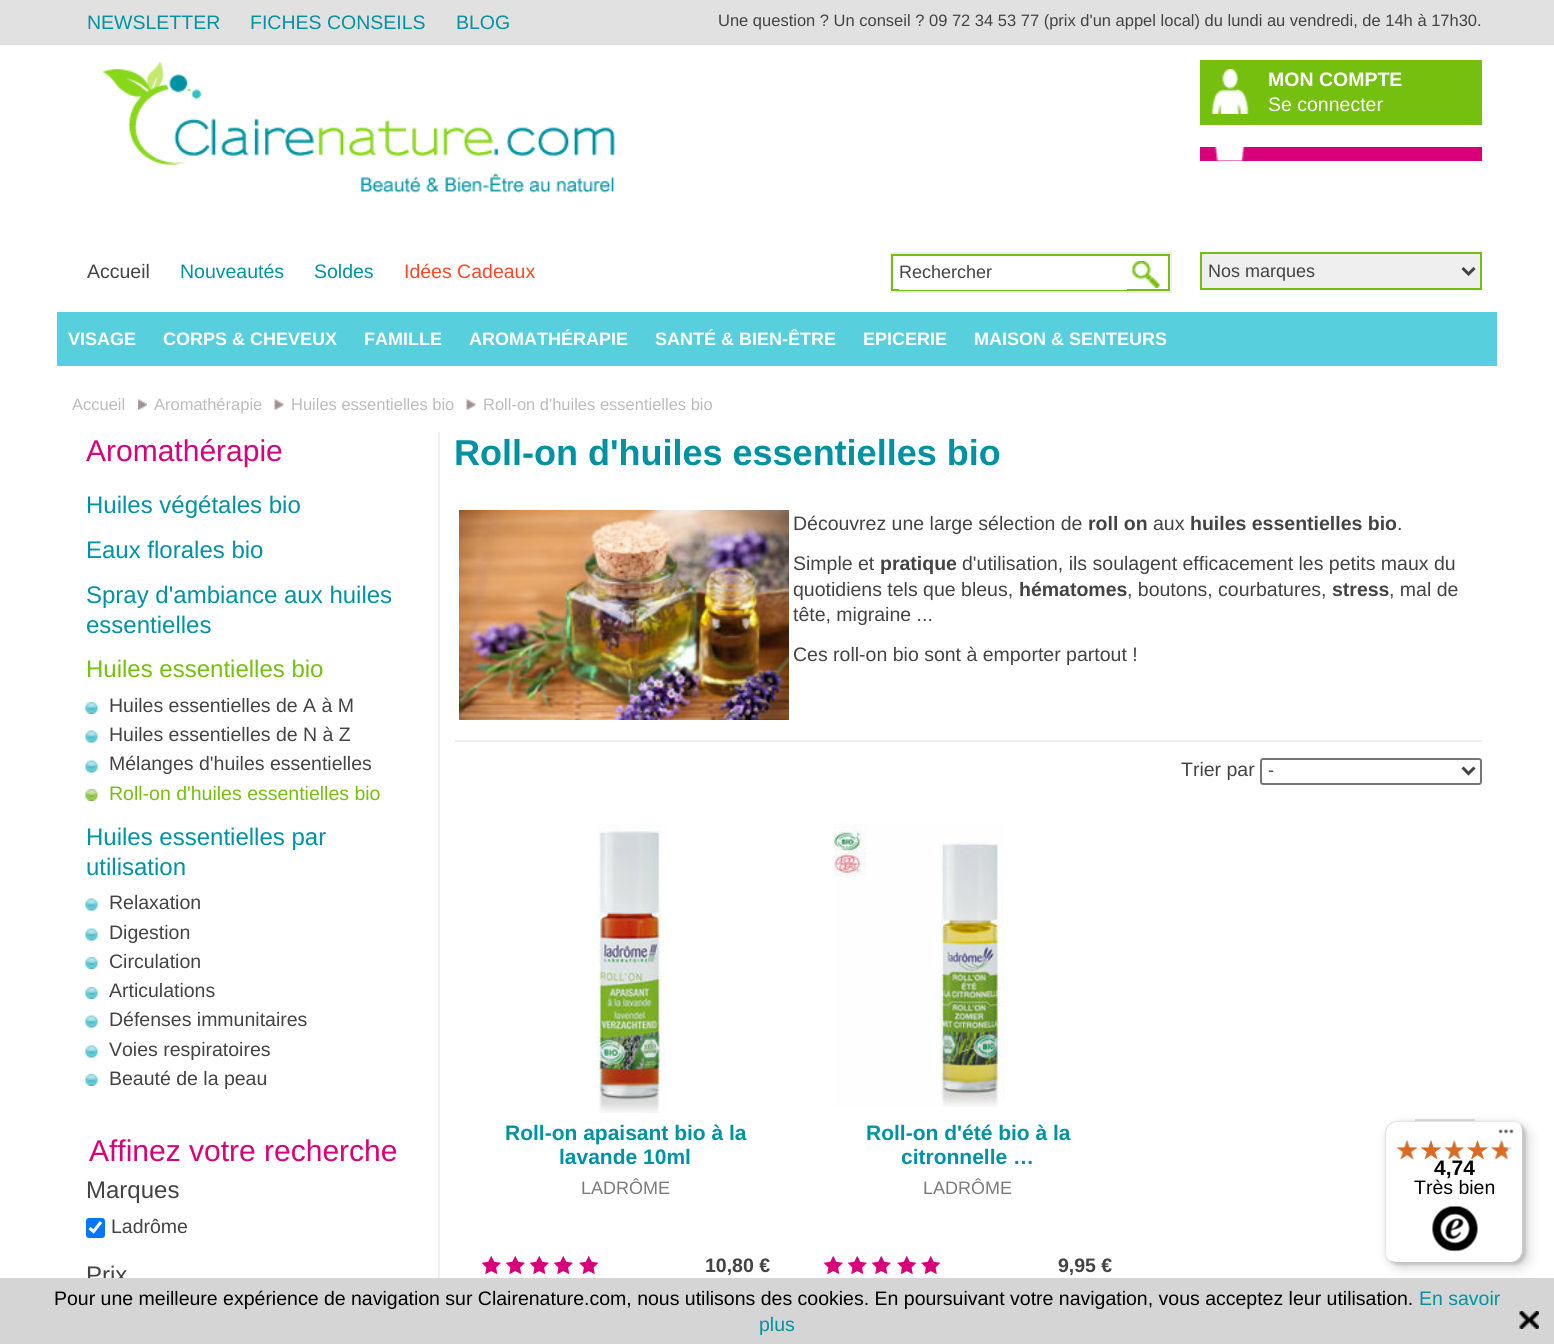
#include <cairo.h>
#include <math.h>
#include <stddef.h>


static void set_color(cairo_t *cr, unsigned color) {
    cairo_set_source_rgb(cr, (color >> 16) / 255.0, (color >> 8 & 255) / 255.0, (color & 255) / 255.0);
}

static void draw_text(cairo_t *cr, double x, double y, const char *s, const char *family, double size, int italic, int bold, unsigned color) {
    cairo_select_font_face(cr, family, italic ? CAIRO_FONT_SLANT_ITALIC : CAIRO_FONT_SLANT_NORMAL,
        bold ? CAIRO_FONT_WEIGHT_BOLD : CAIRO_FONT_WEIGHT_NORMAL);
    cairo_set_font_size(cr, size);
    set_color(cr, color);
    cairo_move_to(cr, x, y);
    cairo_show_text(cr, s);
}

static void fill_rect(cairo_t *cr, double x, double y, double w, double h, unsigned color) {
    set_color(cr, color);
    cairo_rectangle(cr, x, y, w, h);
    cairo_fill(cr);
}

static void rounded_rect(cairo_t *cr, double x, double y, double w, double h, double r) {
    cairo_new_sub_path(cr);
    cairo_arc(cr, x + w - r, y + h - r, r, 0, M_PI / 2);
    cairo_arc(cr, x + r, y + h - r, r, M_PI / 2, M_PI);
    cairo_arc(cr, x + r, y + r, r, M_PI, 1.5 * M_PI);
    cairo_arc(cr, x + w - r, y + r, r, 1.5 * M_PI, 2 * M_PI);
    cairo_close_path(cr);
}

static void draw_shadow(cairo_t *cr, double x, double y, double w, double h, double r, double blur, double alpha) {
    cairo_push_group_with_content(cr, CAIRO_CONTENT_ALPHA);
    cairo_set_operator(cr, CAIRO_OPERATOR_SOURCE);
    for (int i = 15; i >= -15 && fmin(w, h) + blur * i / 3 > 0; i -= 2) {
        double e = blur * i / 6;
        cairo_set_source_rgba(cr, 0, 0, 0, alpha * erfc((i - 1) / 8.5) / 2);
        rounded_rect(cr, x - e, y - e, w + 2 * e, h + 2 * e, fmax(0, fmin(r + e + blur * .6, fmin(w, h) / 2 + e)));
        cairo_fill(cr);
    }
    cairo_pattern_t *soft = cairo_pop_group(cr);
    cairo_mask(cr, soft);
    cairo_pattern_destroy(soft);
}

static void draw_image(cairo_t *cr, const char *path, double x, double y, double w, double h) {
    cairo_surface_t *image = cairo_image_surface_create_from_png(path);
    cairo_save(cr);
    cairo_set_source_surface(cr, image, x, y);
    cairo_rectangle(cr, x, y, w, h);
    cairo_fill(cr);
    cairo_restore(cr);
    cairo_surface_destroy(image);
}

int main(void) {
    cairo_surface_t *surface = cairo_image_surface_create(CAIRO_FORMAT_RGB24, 1554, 1344);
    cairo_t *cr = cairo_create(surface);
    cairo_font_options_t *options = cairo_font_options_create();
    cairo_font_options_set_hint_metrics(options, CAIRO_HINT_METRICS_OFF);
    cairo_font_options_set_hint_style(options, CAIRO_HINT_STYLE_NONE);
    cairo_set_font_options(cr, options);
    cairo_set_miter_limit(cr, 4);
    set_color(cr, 0xFFFFFF);
    cairo_paint(cr);
    fill_rect(cr, 0, 0, 1554, 45, 0xE1E1E1);
    draw_text(cr, 87, 29, "NEWSLETTER", "Liberation Sans", 19.5, 0, 0, 0x0092A3);
    draw_text(cr, 250, 29, "FICHES CONSEILS", "Liberation Sans", 19.5, 0, 0, 0x0092A3);
    draw_text(cr, 456, 29, "BLOG", "Liberation Sans", 19.5, 0, 0, 0x0092A3);
    draw_text(cr, 718, 26, "Une question ? Un conseil ? 09 72 34 53 77 (prix d'un appel local) du lundi au vendredi, de 14h à 17h30.", "Liberation Sans", 16.5, 0, 0, 0x434343);
    draw_image(cr, "assets/img1.png", 102, 61, 513, 132);
    fill_rect(cr, 1200, 60, 282, 65, 0x75C00E);
    draw_image(cr, "assets/img2.png", 1211, 69, 38, 45);
    draw_text(cr, 1268, 86, "MON COMPTE", "Liberation Sans", 19.5, 0, 1, 0xFFFFFF);
    draw_text(cr, 1268, 111, "Se connecter", "Liberation Sans", 19.5, 0, 0, 0xFFFFFF);
    fill_rect(cr, 1200, 147, 282, 14, 0xD8007A);
    draw_image(cr, "assets/img3.png", 1214, 147, 32, 14);
    draw_text(cr, 87, 278, "Accueil", "Liberation Sans", 19.5, 0, 0, 0x434343);
    draw_text(cr, 180, 278, "Nouveautés", "Liberation Sans", 19.5, 0, 0, 0x0092A3);
    draw_text(cr, 314, 278, "Soldes", "Liberation Sans", 19.5, 0, 0, 0x0092A3);
    draw_text(cr, 404, 278, "Idées Cadeaux", "Liberation Sans", 19.5, 0, 0, 0xFF4828);
    cairo_rectangle(cr, 891, 253, 280, 39);
    set_color(cr, 0xEFEFEF);
    cairo_stroke(cr);
    cairo_rectangle(cr, 892, 255, 277, 35);
    set_color(cr, 0x75C00E);
    cairo_stroke(cr);
    fill_rect(cr, 899, 289, 228, 1, 0xFFFFFF);
    draw_text(cr, 899, 278, "Rechercher", "Liberation Sans", 18, 0, 0, 0x434343);
    draw_image(cr, "assets/img4.png", 1132, 261, 28, 27);
    set_color(cr, 0xEFEFEF);
    cairo_rectangle(cr, 1201, 253, 280, 36);
    cairo_fill_preserve(cr);
    set_color(cr, 0x75C00E);
    cairo_stroke(cr);
    cairo_new_path(cr);
    cairo_move_to(cr, 1462.5, 268);
    cairo_line_to(cr, 1468.5, 274);
    cairo_line_to(cr, 1474.5, 268);
    set_color(cr, 0x434343);
    cairo_set_line_width(cr, 3);
    cairo_stroke(cr);
    draw_text(cr, 1208, 277, "Nos marques", "Liberation Sans", 18, 0, 0, 0x434343);
    fill_rect(cr, 57, 312, 1440, 54, 0x57CFDD);
    draw_text(cr, 68, 345, "VISAGE", "Liberation Sans", 18, 0, 1, 0xFFFFFF);
    draw_text(cr, 163, 345, "CORPS & CHEVEUX", "Liberation Sans", 18, 0, 1, 0xFFFFFF);
    draw_text(cr, 364, 345, "FAMILLE", "Liberation Sans", 18, 0, 1, 0xFFFFFF);
    draw_text(cr, 469, 345, "AROMATHÉRAPIE", "Liberation Sans", 18, 0, 1, 0xFFFFFF);
    draw_text(cr, 655, 345, "SANTÉ & BIEN-ÊTRE", "Liberation Sans", 18, 0, 1, 0xFFFFFF);
    draw_text(cr, 863, 345, "EPICERIE", "Liberation Sans", 18, 0, 1, 0xFFFFFF);
    draw_text(cr, 974, 345, "MAISON & SENTEURS", "Liberation Sans", 18, 0, 1, 0xFFFFFF);
    draw_text(cr, 72, 410, "Accueil", "Liberation Sans", 16.5, 0, 0, 0xBCBCBC);
    draw_image(cr, "assets/img5.png", 138, 399, 9, 11);
    draw_text(cr, 154, 410, "Aromathérapie", "Liberation Sans", 16.5, 0, 0, 0xBCBCBC);
    draw_image(cr, "assets/img6.png", 274, 399, 10, 11);
    draw_text(cr, 291, 410, "Huiles essentielles bio", "Liberation Sans", 16.5, 0, 0, 0xBCBCBC);
    draw_image(cr, "assets/img6.png", 466, 399, 10, 11);
    draw_text(cr, 483, 410, "Roll-on d'huiles essentielles bio", "Liberation Sans", 16.5, 0, 0, 0xBCBCBC);
    draw_text(cr, 86, 461, "Aromathérapie", "Liberation Sans", 30, 0, 0, 0xD8007A);
    draw_text(cr, 86, 513, "Huiles végétales bio", "Liberation Sans", 24, 0, 0, 0x0092A3);
    draw_text(cr, 86, 558, "Eaux florales bio", "Liberation Sans", 24, 0, 0, 0x0092A3);
    draw_text(cr, 86, 603, "Spray d'ambiance aux huiles", "Liberation Sans", 24, 0, 0, 0x0092A3);
    draw_text(cr, 86, 633, "essentielles", "Liberation Sans", 24, 0, 0, 0x0092A3);
    draw_text(cr, 86, 677, "Huiles essentielles bio", "Liberation Sans", 24, 0, 0, 0x75C00E);
    draw_image(cr, "assets/img7.png", 85, 702, 13, 12);
    draw_text(cr, 109, 712, "Huiles essentielles de A à M", "Liberation Sans", 19.5, 0, 0, 0x434343);
    draw_image(cr, "assets/img8.png", 85, 730, 13, 13);
    draw_text(cr, 109, 741, "Huiles essentielles de N à Z", "Liberation Sans", 19.5, 0, 0, 0x434343);
    draw_image(cr, "assets/img8.png", 85, 760, 13, 13);
    draw_text(cr, 109, 770, "Mélanges d'huiles essentielles", "Liberation Sans", 19.5, 0, 0, 0x434343);
    draw_image(cr, "assets/img9.png", 85, 789, 13, 12);
    draw_text(cr, 109, 800, "Roll-on d'huiles essentielles bio", "Liberation Sans", 19.5, 0, 0, 0x75C00E);
    draw_text(cr, 86, 845, "Huiles essentielles par", "Liberation Sans", 24, 0, 0, 0x0092A3);
    draw_text(cr, 86, 875, "utilisation", "Liberation Sans", 24, 0, 0, 0x0092A3);
    draw_image(cr, "assets/img8.png", 85, 898, 13, 13);
    draw_text(cr, 109, 909, "Relaxation", "Liberation Sans", 19.5, 0, 0, 0x434343);
    draw_image(cr, "assets/img8.png", 85, 928, 13, 13);
    draw_text(cr, 109, 939, "Digestion", "Liberation Sans", 19.5, 0, 0, 0x434343);
    draw_image(cr, "assets/img7.png", 85, 957, 13, 12);
    draw_text(cr, 109, 968, "Circulation", "Liberation Sans", 19.5, 0, 0, 0x434343);
    draw_image(cr, "assets/img7.png", 85, 987, 13, 12);
    draw_text(cr, 109, 997, "Articulations", "Liberation Sans", 19.5, 0, 0, 0x434343);
    draw_image(cr, "assets/img8.png", 85, 1015, 13, 13);
    draw_text(cr, 109, 1026, "Défenses immunitaires", "Liberation Sans", 19.5, 0, 0, 0x434343);
    draw_image(cr, "assets/img8.png", 85, 1045, 13, 13);
    draw_text(cr, 109, 1056, "Voies respiratoires", "Liberation Sans", 19.5, 0, 0, 0x434343);
    draw_image(cr, "assets/img7.png", 85, 1074, 13, 12);
    draw_text(cr, 109, 1085, "Beauté de la peau", "Liberation Sans", 19.5, 0, 0, 0x434343);
    draw_text(cr, 89, 1161, "Affinez votre recherche", "Liberation Sans", 30, 0, 0, 0xD8007A);
    draw_text(cr, 86, 1198, "Marques", "Liberation Sans", 24, 0, 0, 0x434343);
    set_color(cr, 0x0075FF);
    rounded_rect(cr, 86, 1218, 19, 20, 3);
    cairo_fill(cr);
    cairo_new_path(cr);
    cairo_move_to(cr, 89.5, 1228);
    cairo_line_to(cr, 93.5, 1231.5);
    cairo_line_to(cr, 101, 1222);
    set_color(cr, 0xFFFFFF);
    cairo_set_line_width(cr, 3.1);
    cairo_stroke(cr);
    draw_text(cr, 111, 1233, "Ladrôme", "Liberation Sans", 19.5, 0, 0, 0x434343);
    draw_text(cr, 86, 1283, "Prix", "Liberation Sans", 24, 0, 0, 0x434343);
    fill_rect(cr, 438, 432, 2, 846, 0xEFEFEF);
    draw_text(cr, 454, 465, "Roll-on d'huiles essentielles bio", "Liberation Sans", 36, 0, 1, 0x0092A3);
    draw_image(cr, "assets/img10.png", 459, 510, 330, 210);
    draw_text(cr, 793, 530, "Découvrez une large sélection de", "Liberation Sans", 19.5, 0, 0, 0x434343);
    draw_text(cr, 1088, 530, "roll on", "Liberation Sans", 19.5, 0, 1, 0x434343);
    draw_text(cr, 1153, 530, "aux", "Liberation Sans", 19.5, 0, 0, 0x434343);
    draw_text(cr, 1190, 530, "huiles essentielles bio", "Liberation Sans", 19.5, 0, 1, 0x434343);
    draw_text(cr, 1397, 530, ".", "Liberation Sans", 19.5, 0, 0, 0x434343);
    draw_text(cr, 793, 570, "Simple et", "Liberation Sans", 19.5, 0, 0, 0x434343);
    draw_text(cr, 880, 570, "pratique", "Liberation Sans", 19.5, 0, 1, 0x434343);
    draw_text(cr, 962, 570, "d'utilisation, ils soulagent efficacement les petits maux du", "Liberation Sans", 19.5, 0, 0, 0x434343);
    draw_text(cr, 793, 596, "quotidiens tels que bleus,", "Liberation Sans", 19.5, 0, 0, 0x434343);
    draw_text(cr, 1019, 596, "hématomes", "Liberation Sans", 19.5, 0, 1, 0x434343);
    draw_text(cr, 1127, 596, ", boutons, courbatures,", "Liberation Sans", 19.5, 0, 0, 0x434343);
    draw_text(cr, 1332, 596, "stress", "Liberation Sans", 19.5, 0, 1, 0x434343);
    draw_text(cr, 1389, 596, ", mal de", "Liberation Sans", 19.5, 0, 0, 0x434343);
    draw_text(cr, 793, 621, "tête, migraine ...", "Liberation Sans", 19.5, 0, 0, 0x434343);
    draw_text(cr, 793, 661, "Ces roll-on bio sont à emporter partout !", "Liberation Sans", 19.5, 0, 0, 0x434343);
    fill_rect(cr, 455, 740, 1027, 2, 0xEFEFEF);
    draw_text(cr, 1181, 776, "Trier par", "Liberation Sans", 19.5, 0, 0, 0x434343);
    rounded_rect(cr, 1261, 759, 220, 25, 2);
    set_color(cr, 0x767676);
    cairo_set_line_width(cr, 2);
    cairo_stroke(cr);
    cairo_new_path(cr);
    cairo_move_to(cr, 1462.5, 767.5);
    cairo_line_to(cr, 1468.5, 773.5);
    cairo_line_to(cr, 1474.5, 767.5);
    set_color(cr, 0x434343);
    cairo_set_line_width(cr, 3);
    cairo_stroke(cr);
    draw_text(cr, 1268, 776, "-", "Liberation Sans", 18, 0, 0, 0x434343);
    draw_image(cr, "assets/img11.png", 597, 824, 69, 289);
    draw_text(cr, 505, 1140, "Roll-on apaisant bio à la", "Liberation Sans", 21, 0, 1, 0x0092A3);
    draw_text(cr, 559, 1164, "lavande 10ml", "Liberation Sans", 21, 0, 1, 0x0092A3);
    draw_text(cr, 581, 1194, "LADRÔME", "Liberation Sans", 18, 0, 0, 0x7B7B7B);
    draw_image(cr, "assets/img12.png", 481, 1255, 20, 20);
    draw_image(cr, "assets/img12.png", 505, 1255, 20, 20);
    draw_image(cr, "assets/img12.png", 529, 1255, 20, 20);
    draw_image(cr, "assets/img12.png", 553, 1255, 20, 20);
    draw_image(cr, "assets/img13.png", 579, 1255, 20, 20);
    draw_text(cr, 705, 1272, "10,80 €", "Liberation Sans", 19.5, 0, 1, 0x434343);
    draw_image(cr, "assets/img14.png", 834, 823, 171, 284);
    draw_text(cr, 866, 1140, "Roll-on d'été bio à la", "Liberation Sans", 21, 0, 1, 0x0092A3);
    draw_text(cr, 901, 1164, "citronnelle …", "Liberation Sans", 21, 0, 1, 0x0092A3);
    draw_text(cr, 923, 1194, "LADRÔME", "Liberation Sans", 18, 0, 0, 0x7B7B7B);
    draw_image(cr, "assets/img12.png", 823, 1255, 20, 20);
    draw_image(cr, "assets/img12.png", 847, 1255, 20, 20);
    draw_image(cr, "assets/img12.png", 871, 1255, 20, 20);
    draw_image(cr, "assets/img13.png", 897, 1255, 20, 20);
    draw_image(cr, "assets/img13.png", 921, 1255, 20, 20);
    draw_text(cr, 1058, 1272, "9,95 €", "Liberation Sans", 19.5, 0, 1, 0x434343);
    fill_rect(cr, 1415, 1119, 60, 2, 0xE1E1E1);
    fill_rect(cr, 0, 1278, 1554, 66, 0xD5D5D5);
    set_color(cr, 0x000000);
    draw_shadow(cr, 1389, 1125, 140, 143, 12, 6, 0.15);
    draw_shadow(cr, 1386, 1122, 140, 143, 12, 1.5, 0.15);
    set_color(cr, 0xFFFFFF);
    rounded_rect(cr, 1385, 1121, 139, 142, 12);
    cairo_fill(cr);
    set_color(cr, 0xE5E5E5);
    cairo_new_path(cr);
    cairo_move_to(cr, 1398, 1122);
    cairo_line_to(cr, 1514, 1122);
    cairo_line_to(cr, 1519, 1123);
    cairo_curve_to(cr, 1517, 1122, 1514, 1121, 1512, 1121);
    cairo_line_to(cr, 1397, 1121);
    cairo_curve_to(cr, 1390, 1121, 1385, 1126, 1385, 1133);
    cairo_line_to(cr, 1385, 1251);
    cairo_curve_to(cr, 1385, 1254, 1386, 1257, 1388, 1259);
    cairo_curve_to(cr, 1387, 1257, 1386, 1255, 1386, 1252);
    cairo_line_to(cr, 1386, 1134);
    cairo_curve_to(cr, 1386, 1127, 1391, 1122, 1398, 1122);
    cairo_close_path(cr);
    cairo_fill(cr);
    cairo_set_source_rgba(cr, 0, 0, 0, 0.2);
    cairo_new_path(cr);
    cairo_move_to(cr, 1391, 1261);
    cairo_curve_to(cr, 1392, 1262, 1395, 1263, 1397, 1263);
    cairo_line_to(cr, 1512, 1263);
    cairo_curve_to(cr, 1519, 1263, 1524, 1258, 1524, 1251);
    cairo_line_to(cr, 1524, 1133);
    cairo_curve_to(cr, 1524, 1129, 1522, 1126, 1520, 1124);
    cairo_curve_to(cr, 1521, 1126, 1522, 1128, 1522, 1131);
    cairo_line_to(cr, 1522, 1250);
    cairo_curve_to(cr, 1522, 1256, 1517, 1262, 1510, 1262);
    cairo_line_to(cr, 1395, 1262);
    cairo_close_path(cr);
    cairo_fill(cr);
    cairo_set_source_rgba(cr, 0.196, 0.196, 0.196, 0.2);
    cairo_new_path(cr);
    cairo_move_to(cr, 1389, 1260);
    cairo_curve_to(cr, 1391, 1262, 1394, 1263, 1397, 1263);
    cairo_line_to(cr, 1512, 1263);
    cairo_curve_to(cr, 1519, 1263, 1524, 1258, 1524, 1251);
    cairo_line_to(cr, 1524, 1133);
    cairo_curve_to(cr, 1524, 1130, 1523, 1127, 1521, 1125);
    cairo_curve_to(cr, 1522, 1127, 1523, 1129, 1523, 1132);
    cairo_line_to(cr, 1523, 1250);
    cairo_curve_to(cr, 1523, 1257, 1518, 1262, 1511, 1262);
    cairo_line_to(cr, 1396, 1262);
    cairo_curve_to(cr, 1393, 1262, 1391, 1261, 1389, 1260);
    cairo_close_path(cr);
    cairo_fill(cr);
    cairo_set_source_rgba(cr, 1, 1, 1, 0.3);
    cairo_new_path(cr);
    cairo_move_to(cr, 1389, 1260);
    cairo_curve_to(cr, 1391, 1262, 1394, 1263, 1397, 1263);
    cairo_line_to(cr, 1512, 1263);
    cairo_curve_to(cr, 1519, 1263, 1524, 1258, 1524, 1251);
    cairo_line_to(cr, 1524, 1133);
    cairo_curve_to(cr, 1524, 1130, 1523, 1127, 1521, 1125);
    cairo_curve_to(cr, 1522, 1127, 1523, 1129, 1523, 1132);
    cairo_line_to(cr, 1523, 1250);
    cairo_curve_to(cr, 1523, 1257, 1518, 1262, 1511, 1262);
    cairo_line_to(cr, 1396, 1262);
    cairo_curve_to(cr, 1393, 1262, 1391, 1261, 1389, 1260);
    cairo_close_path(cr);
    cairo_fill(cr);
    draw_image(cr, "assets/img15.png", 1498, 1129, 16, 5);
    draw_image(cr, "assets/img16.png", 1396, 1140, 22, 20);
    draw_image(cr, "assets/img17.png", 1421, 1140, 20, 19);
    draw_image(cr, "assets/img18.png", 1444, 1140, 20, 20);
    draw_image(cr, "assets/img19.png", 1467, 1140, 21, 19);
    draw_image(cr, "assets/img20.png", 1491, 1140, 21, 20);
    draw_image(cr, "assets/img21.png", 1396, 1140, 22, 19);
    draw_image(cr, "assets/img22.png", 1421, 1140, 20, 20);
    draw_image(cr, "assets/img23.png", 1444, 1140, 20, 19);
    draw_image(cr, "assets/img24.png", 1467, 1140, 21, 20);
    draw_image(cr, "assets/img25.png", 1491, 1140, 17, 19);
    draw_text(cr, 1434, 1175, "4,74", "Liberation Sans", 21, 0, 1, 0x000000);
    draw_text(cr, 1414, 1194, "Très bien", "Liberation Sans", 19.5, 0, 0, 0x000000);
    draw_image(cr, "assets/img26.png", 1432, 1206, 46, 46);
    draw_text(cr, 54, 1305, "Pour une meilleure expérience de navigation sur Clairenature.com, nous utilisons des cookies. En poursuivant votre navigation, vous acceptez leur utilisation.", "Liberation Sans", 19.5, 0, 0, 0x000000);
    draw_text(cr, 1419, 1305, "En savoir", "Liberation Sans", 19.5, 0, 0, 0x0092A3);
    draw_text(cr, 759, 1331, "plus", "Liberation Sans", 19.5, 0, 0, 0x0092A3);
    draw_image(cr, "assets/img27.png", 1519, 1311, 20, 18);
    cairo_surface_write_to_png(surface, "output.png");
    cairo_font_options_destroy(options);
    cairo_destroy(cr);
    cairo_surface_destroy(surface);
    return 0;
}
